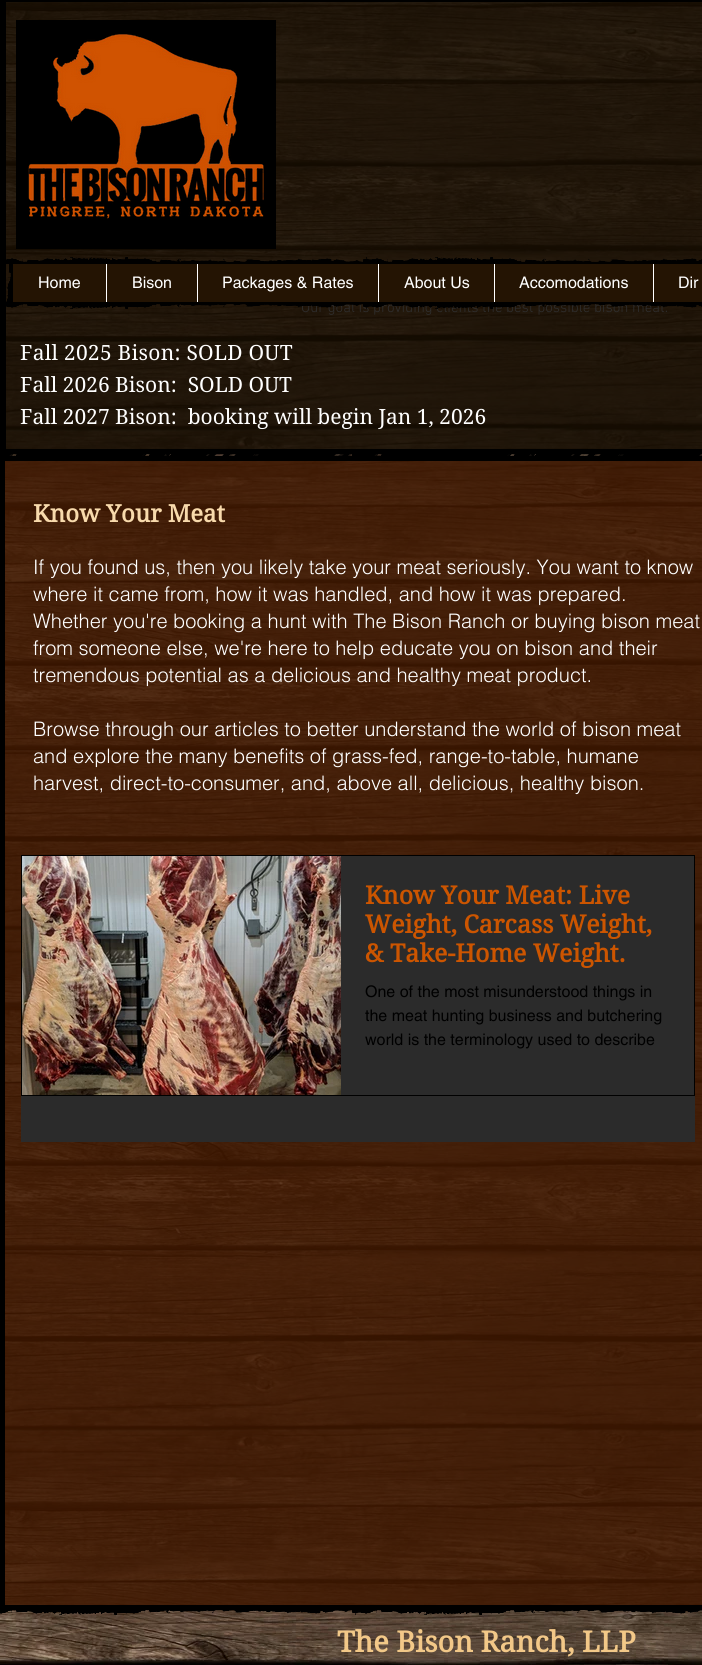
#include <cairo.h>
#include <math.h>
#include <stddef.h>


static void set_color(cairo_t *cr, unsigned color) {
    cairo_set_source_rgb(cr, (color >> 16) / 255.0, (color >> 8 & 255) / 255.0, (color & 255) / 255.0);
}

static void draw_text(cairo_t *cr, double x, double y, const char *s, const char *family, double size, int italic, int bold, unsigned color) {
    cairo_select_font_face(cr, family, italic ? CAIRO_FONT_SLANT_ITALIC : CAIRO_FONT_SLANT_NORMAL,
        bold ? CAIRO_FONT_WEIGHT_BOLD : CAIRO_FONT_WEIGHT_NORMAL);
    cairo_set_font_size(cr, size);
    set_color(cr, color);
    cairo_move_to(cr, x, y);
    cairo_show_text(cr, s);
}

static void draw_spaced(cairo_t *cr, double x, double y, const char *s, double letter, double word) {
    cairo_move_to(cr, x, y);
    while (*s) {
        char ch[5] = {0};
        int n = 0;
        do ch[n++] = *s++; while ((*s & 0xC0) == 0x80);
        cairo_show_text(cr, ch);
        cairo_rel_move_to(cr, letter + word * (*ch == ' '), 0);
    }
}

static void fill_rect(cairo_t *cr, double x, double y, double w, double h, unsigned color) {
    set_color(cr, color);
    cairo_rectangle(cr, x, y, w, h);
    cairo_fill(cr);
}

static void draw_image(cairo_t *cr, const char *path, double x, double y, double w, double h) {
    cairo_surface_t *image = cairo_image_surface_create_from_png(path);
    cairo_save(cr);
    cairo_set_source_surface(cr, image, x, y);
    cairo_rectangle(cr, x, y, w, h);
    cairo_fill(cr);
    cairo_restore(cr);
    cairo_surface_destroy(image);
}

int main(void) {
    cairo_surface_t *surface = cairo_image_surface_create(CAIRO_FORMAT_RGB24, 702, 1665);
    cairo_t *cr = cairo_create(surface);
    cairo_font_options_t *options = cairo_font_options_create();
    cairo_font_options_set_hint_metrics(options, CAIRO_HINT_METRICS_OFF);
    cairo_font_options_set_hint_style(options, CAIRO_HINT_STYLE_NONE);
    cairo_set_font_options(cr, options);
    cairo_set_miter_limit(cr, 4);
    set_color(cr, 0xFFFFFF);
    cairo_paint(cr);
    draw_image(cr, "assets/img1.png", 0, 2, 702, 1663);
    cairo_set_source_rgba(cr, 0.09, 0.051, 0.008, 0.85);
    cairo_rectangle(cr, 6, 2, 696, 447);
    cairo_fill(cr);
    fill_rect(cr, 0, 0, 702, 2, 0x000000);
    draw_image(cr, "assets/img2.png", 0, 449, 702, 7);
    fill_rect(cr, 0, 2, 6, 447, 0x000000);
    fill_rect(cr, 16, 20, 260, 229, 0x000000);
    draw_image(cr, "assets/img3.png", 28, 34, 236, 185);
    draw_image(cr, "assets/img4.png", 6, 257, 696, 7);
    draw_image(cr, "assets/img5.png", 6, 264, 7, 38);
    draw_text(cr, 301, 312, "Our goal is providing clients the best possible bison meat.", "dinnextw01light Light", 15, 0, 0, 0x2F2E2E);
    fill_rect(cr, 13, 264, 689, 38, 0x241403);
    draw_text(cr, 38, 288, "Home", "helvetica", 16, 0, 0, 0xFFFFFF);
    fill_rect(cr, 106, 264, 1, 38, 0xFFFFFF);
    draw_text(cr, 132, 288, "Bison", "helvetica", 16, 0, 0, 0xFFFFFF);
    fill_rect(cr, 197, 264, 1, 38, 0xFFFFFF);
    draw_text(cr, 222, 288, "Packages & Rates", "helvetica", 16, 0, 0, 0xFFFFFF);
    fill_rect(cr, 378, 264, 1, 38, 0xFFFFFF);
    draw_text(cr, 404, 288, "About Us", "helvetica", 16, 0, 0, 0xFFFFFF);
    fill_rect(cr, 494, 264, 1, 38, 0xFFFFFF);
    draw_text(cr, 519, 288, "Accomodations", "helvetica", 16, 0, 0, 0xFFFFFF);
    fill_rect(cr, 653, 264, 1, 38, 0xFFFFFF);
    draw_text(cr, 678, 288, "Dir", "helvetica", 16, 0, 0, 0xFFFFFF);
    draw_image(cr, "assets/img6.png", 6, 302, 696, 7);
    cairo_select_font_face(cr, "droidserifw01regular", CAIRO_FONT_SLANT_NORMAL, CAIRO_FONT_WEIGHT_NORMAL);
    cairo_set_font_size(cr, 21);
    draw_spaced(cr, 20, 360, "Fall 2025 Bison: SOLD OUT", 0.25, 0);
    draw_text(cr, 20, 392, "Fall 2026 Bison:  SOLD OUT", "droidserifw01regular", 21, 0, 0, 0xFFFFFF);
    draw_text(cr, 20, 424, "Fall 2027 Bison:  booking will begin Jan 1, 2026", "droidserifw01regular", 21, 0, 0, 0xFFFFFF);
    cairo_set_source_rgba(cr, 0.251, 0.094, 0, 0.85);
    cairo_rectangle(cr, 5, 461, 697, 1144);
    cairo_fill(cr);
    draw_image(cr, "assets/img7.png", 0, 454, 702, 7);
    draw_image(cr, "assets/img8.png", 0, 1605, 702, 10);
    fill_rect(cr, 0, 461, 5, 1144, 0x000000);
    draw_text(cr, 33, 522, "Know Your Meat", "droidserifw01regular", 24, 0, 1, 0xF8DAAC);
    draw_text(cr, 33, 574, "If you found us, then you likely take your meat seriously. You want to know", "helvetica Light", 20, 0, 0, 0xFFFFFF);
    draw_text(cr, 33, 601, "where it came from, how it was handled, and how it was prepared.", "helvetica Light", 20, 0, 0, 0xFFFFFF);
    draw_text(cr, 33, 628, "Whether you're booking a hunt with The Bison Ranch or buying bison meat", "helvetica Light", 20, 0, 0, 0xFFFFFF);
    draw_text(cr, 33, 655, "from someone else, we're here to help educate you on bison and their", "helvetica Light", 20, 0, 0, 0xFFFFFF);
    draw_text(cr, 33, 682, "tremendous potential as a delicious and healthy meat product.", "helvetica Light", 20, 0, 0, 0xFFFFFF);
    draw_text(cr, 33, 736, "Browse through our articles to better understand the world of bison meat", "helvetica Light", 20, 0, 0, 0xFFFFFF);
    draw_text(cr, 33, 763, "and explore the many benefits of grass-fed, range-to-table, humane", "helvetica Light", 20, 0, 0, 0xFFFFFF);
    draw_text(cr, 33, 790, "harvest, direct-to-consumer, and, above all, delicious, healthy bison.", "helvetica Light", 20, 0, 0, 0xFFFFFF);
    fill_rect(cr, 21, 1096, 674, 46, 0x2B2B2B);
    cairo_rectangle(cr, 21.5, 855.5, 673, 240);
    set_color(cr, 0x000000);
    cairo_set_line_width(cr, 1);
    cairo_stroke(cr);
    draw_image(cr, "assets/img9.png", 22, 856, 319, 239);
    fill_rect(cr, 341, 856, 353, 239, 0x2B2B2B);
    draw_text(cr, 365, 904, "Know Your Meat: Live", "droidserifw01regular", 25, 0, 1, 0xCC5500);
    draw_text(cr, 365, 933, "Weight, Carcass Weight,", "droidserifw01regular", 25, 0, 1, 0xCC5500);
    draw_text(cr, 365, 962, "& Take-Home Weight.", "droidserifw01regular", 25, 0, 1, 0xCC5500);
    draw_text(cr, 365, 997, "One of the most misunderstood things in", "helvetica", 16, 0, 0, 0x000000);
    draw_text(cr, 365, 1021, "the meat hunting business and butchering", "helvetica", 16, 0, 0, 0x000000);
    draw_text(cr, 365, 1045, "world is the terminology used to describe", "helvetica", 16, 0, 0, 0x000000);
    draw_text(cr, 337, 1652, "The Bison Ranch, LLP", "droidserifw01regular", 29, 0, 1, 0xF2C888);
    cairo_surface_write_to_png(surface, "output.png");
    cairo_font_options_destroy(options);
    cairo_destroy(cr);
    cairo_surface_destroy(surface);
    return 0;
}
